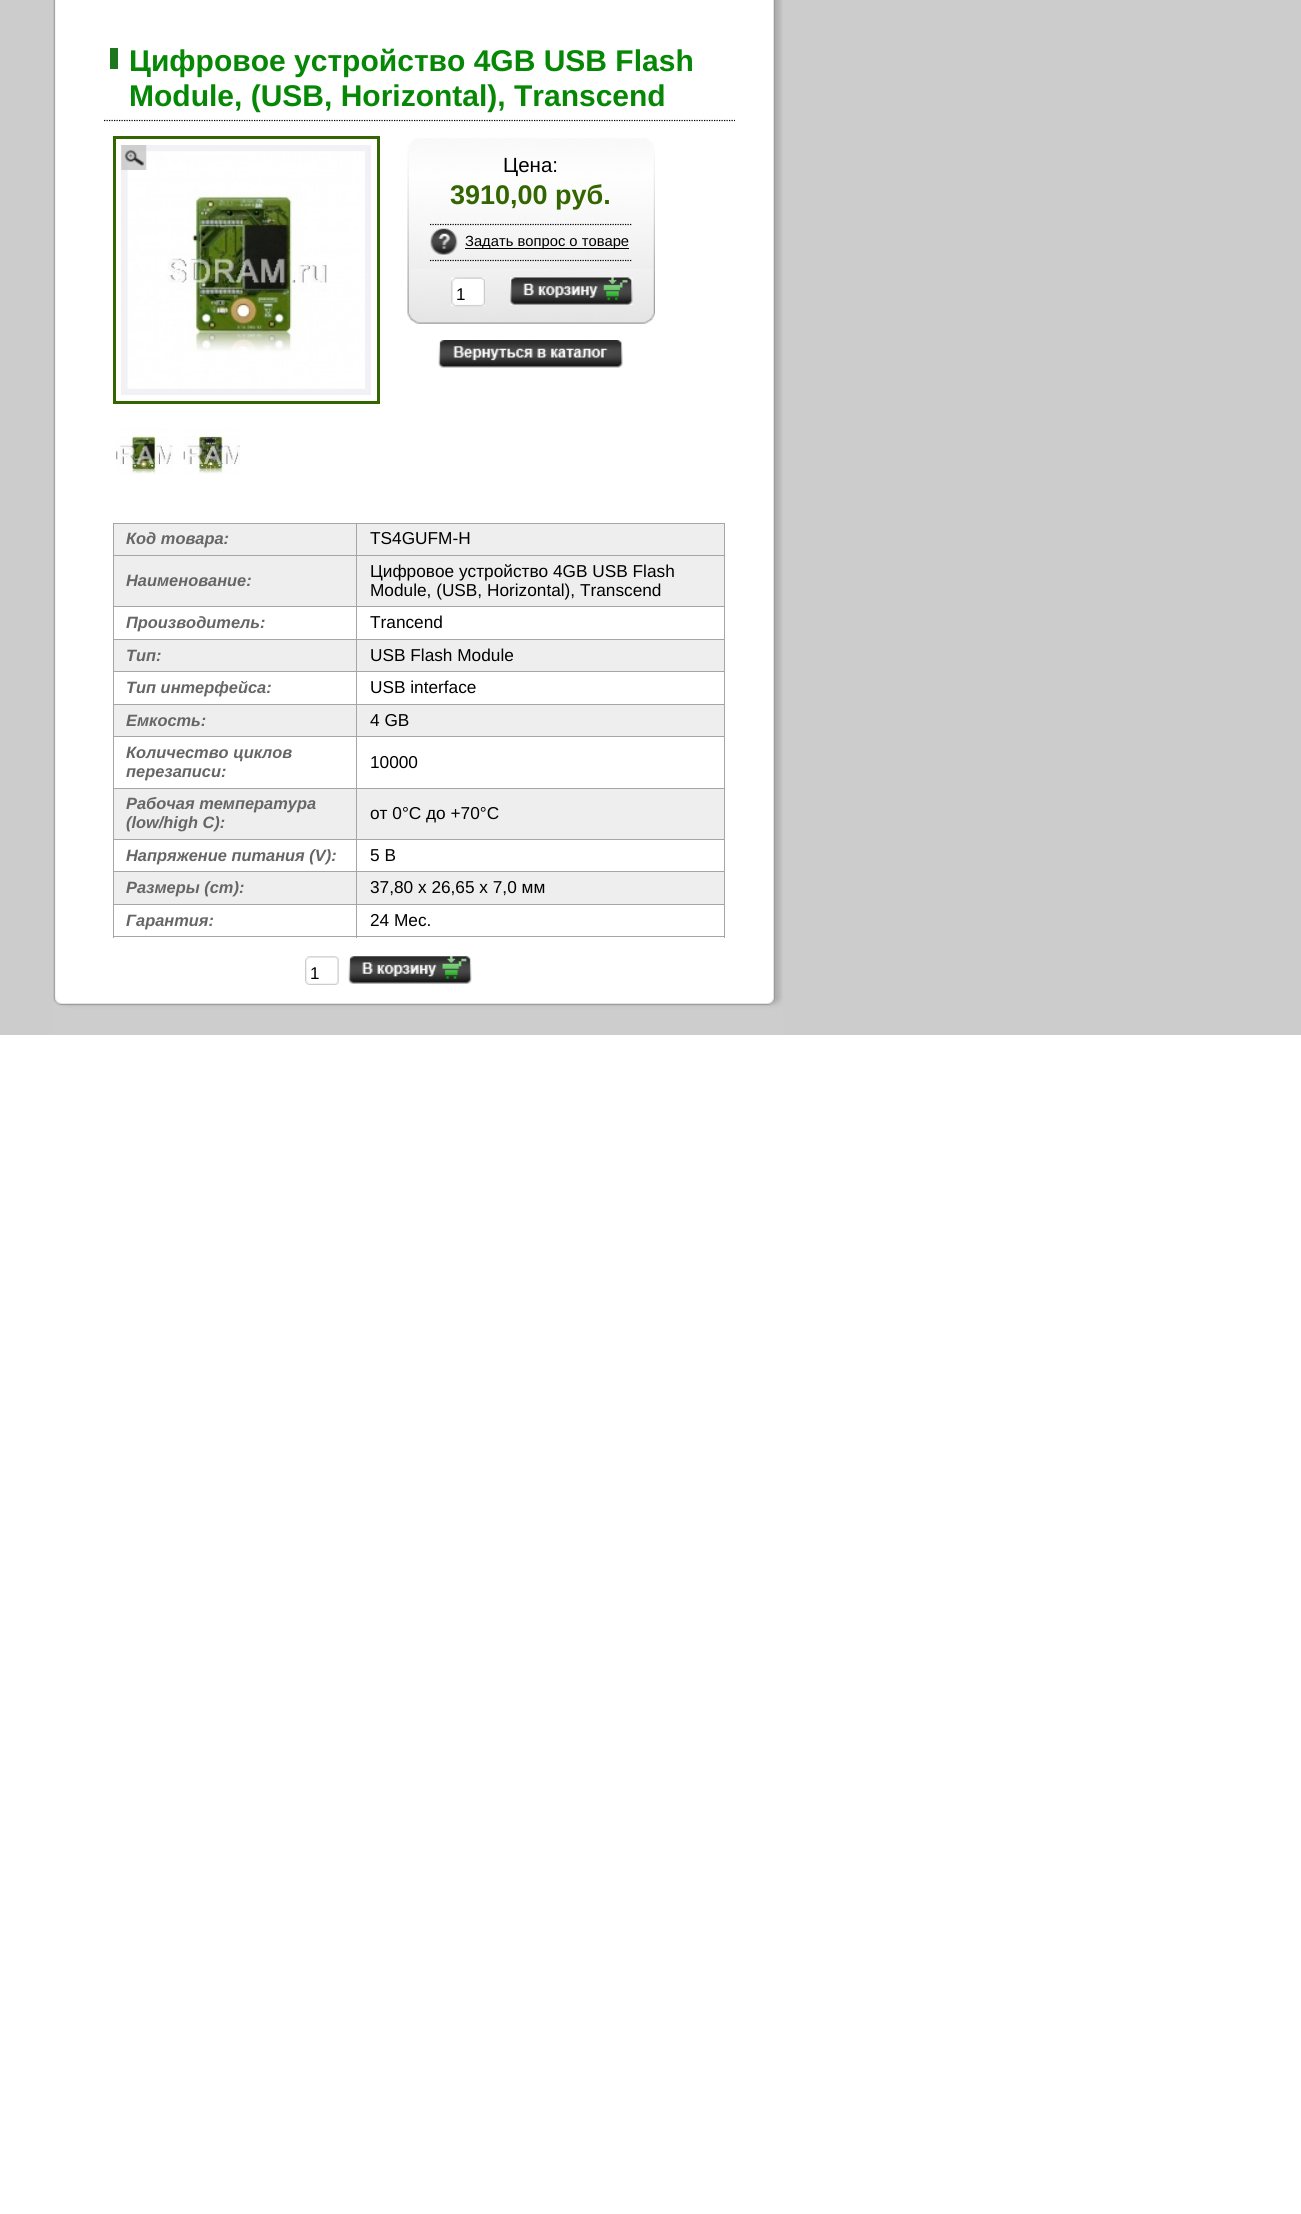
#include <cairo.h>
#include <math.h>
#include <stddef.h>


static void set_color(cairo_t *cr, unsigned color) {
    cairo_set_source_rgb(cr, (color >> 16) / 255.0, (color >> 8 & 255) / 255.0, (color & 255) / 255.0);
}

static void draw_text(cairo_t *cr, double x, double y, const char *s, const char *family, double size, int italic, int bold, unsigned color) {
    cairo_select_font_face(cr, family, italic ? CAIRO_FONT_SLANT_ITALIC : CAIRO_FONT_SLANT_NORMAL,
        bold ? CAIRO_FONT_WEIGHT_BOLD : CAIRO_FONT_WEIGHT_NORMAL);
    cairo_set_font_size(cr, size);
    set_color(cr, color);
    cairo_move_to(cr, x, y);
    cairo_show_text(cr, s);
}

static void fill_rect(cairo_t *cr, double x, double y, double w, double h, unsigned color) {
    set_color(cr, color);
    cairo_rectangle(cr, x, y, w, h);
    cairo_fill(cr);
}

static void draw_image(cairo_t *cr, const char *path, double x, double y, double w, double h) {
    cairo_surface_t *image = cairo_image_surface_create_from_png(path);
    cairo_save(cr);
    cairo_set_source_surface(cr, image, x, y);
    cairo_rectangle(cr, x, y, w, h);
    cairo_fill(cr);
    cairo_restore(cr);
    cairo_surface_destroy(image);
}

int main(void) {
    cairo_surface_t *surface = cairo_image_surface_create(CAIRO_FORMAT_RGB24, 1301, 2214);
    cairo_t *cr = cairo_create(surface);
    cairo_font_options_t *options = cairo_font_options_create();
    cairo_font_options_set_hint_metrics(options, CAIRO_HINT_METRICS_OFF);
    cairo_font_options_set_hint_style(options, CAIRO_HINT_STYLE_NONE);
    cairo_set_font_options(cr, options);
    cairo_set_miter_limit(cr, 4);
    set_color(cr, 0xFFFFFF);
    cairo_paint(cr);
    fill_rect(cr, 0, 0, 1301, 1035, 0xCCCCCC);
    draw_image(cr, "assets/img1.png", 53, 0, 730, 997);
    draw_image(cr, "assets/img2.png", 53, 997, 730, 38);
    fill_rect(cr, 110, 48, 8, 21, 0x1E761E);
    cairo_new_path(cr);
    cairo_move_to(cr, 104, 120.5);
    cairo_line_to(cr, 735, 120.5);
    set_color(cr, 0x000000);
    cairo_set_line_width(cr, 1.2);
    cairo_set_dash(cr, (double[]){1.25, 1.25}, 2, 0);
    cairo_stroke(cr);
    draw_text(cr, 129, 71, "Цифровое устройство 4GB USB Flash", "Liberation Sans", 30, 0, 1, 0x068806);
    draw_text(cr, 129, 106, "Module, (USB, Horizontal), Transcend", "Liberation Sans", 30, 0, 1, 0x068806);
    cairo_rectangle(cr, 114.5, 137.5, 264, 265);
    set_color(cr, 0x336600);
    cairo_set_line_width(cr, 3);
    cairo_set_dash(cr, NULL, 0, 0);
    cairo_stroke(cr);
    fill_rect(cr, 121, 145, 250, 250, 0xF1F1F6);
    draw_image(cr, "assets/img4.png", 127, 151, 238, 238);
    draw_image(cr, "assets/img3.png", 121, 145, 26, 25);
    draw_image(cr, "assets/img5.png", 116, 428, 57, 46);
    draw_image(cr, "assets/img6.png", 183, 429, 57, 45);
    draw_image(cr, "assets/img7.png", 407, 138, 248, 186);
    draw_text(cr, 503, 172, "Цена:", "Liberation Sans", 20.5, 0, 0, 0x000000);
    draw_text(cr, 450, 204, "3910,00 руб.", "Liberation Sans", 27, 0, 1, 0x336600);
    cairo_new_path(cr);
    cairo_move_to(cr, 430, 224.5);
    cairo_line_to(cr, 632.5, 224.5);
    set_color(cr, 0x000000);
    cairo_set_line_width(cr, 1.2);
    cairo_set_dash(cr, (double[]){1.25, 1.25}, 2, 0);
    cairo_stroke(cr);
    cairo_new_path(cr);
    cairo_move_to(cr, 430, 260.5);
    cairo_line_to(cr, 632.5, 260.5);
    cairo_stroke(cr);
    draw_image(cr, "assets/img8.png", 430, 227, 28, 28);
    fill_rect(cr, 465, 248, 164, 1, 0x000000);
    draw_text(cr, 465, 246, "Задать вопрос о товаре", "Liberation Sans", 14.75, 0, 0, 0x000000);
    draw_image(cr, "assets/img9.png", 451, 277, 34, 30);
    draw_text(cr, 456, 300, "1", "Liberation Sans", 17, 0, 0, 0x000000);
    draw_image(cr, "assets/img10.png", 510, 277, 123, 28);
    draw_image(cr, "assets/img11.png", 438, 340, 185, 28);
    fill_rect(cr, 114, 524, 610, 31, 0xEEEEEE);
    fill_rect(cr, 356, 523, 369, 1, 0xA5A5A5);
    fill_rect(cr, 356, 555, 369, 1, 0xA5A5A5);
    fill_rect(cr, 114, 556, 610, 50, 0xEEEEEE);
    fill_rect(cr, 356, 606, 369, 1, 0xA5A5A5);
    fill_rect(cr, 356, 639, 369, 1, 0xA5A5A5);
    fill_rect(cr, 114, 640, 610, 31, 0xEEEEEE);
    fill_rect(cr, 356, 671, 369, 1, 0xA5A5A5);
    fill_rect(cr, 356, 704, 369, 1, 0xA5A5A5);
    fill_rect(cr, 114, 705, 610, 31, 0xEEEEEE);
    fill_rect(cr, 356, 736, 369, 1, 0xA5A5A5);
    fill_rect(cr, 356, 788, 369, 1, 0xA5A5A5);
    fill_rect(cr, 114, 789, 610, 50, 0xEEEEEE);
    fill_rect(cr, 356, 839, 369, 1, 0xA5A5A5);
    fill_rect(cr, 114, 872, 610, 32, 0xEEEEEE);
    fill_rect(cr, 356, 871, 369, 1, 0xA5A5A5);
    fill_rect(cr, 356, 904, 369, 1, 0xA5A5A5);
    fill_rect(cr, 724, 904, 1, 34, 0xA5A5A5);
    fill_rect(cr, 356, 936, 369, 1, 0xA5A5A5);
    fill_rect(cr, 356, 904, 1, 34, 0xA5A5A5);
    fill_rect(cr, 113, 904, 245, 1, 0xA5A5A5);
    fill_rect(cr, 356, 871, 1, 34, 0xA5A5A5);
    fill_rect(cr, 113, 871, 245, 1, 0xA5A5A5);
    fill_rect(cr, 356, 839, 1, 34, 0xA5A5A5);
    fill_rect(cr, 113, 839, 245, 1, 0xA5A5A5);
    fill_rect(cr, 356, 788, 1, 52, 0xA5A5A5);
    fill_rect(cr, 113, 788, 245, 1, 0xA5A5A5);
    fill_rect(cr, 356, 736, 1, 53, 0xA5A5A5);
    fill_rect(cr, 113, 736, 245, 1, 0xA5A5A5);
    fill_rect(cr, 356, 704, 1, 34, 0xA5A5A5);
    fill_rect(cr, 113, 704, 245, 1, 0xA5A5A5);
    fill_rect(cr, 356, 671, 1, 34, 0xA5A5A5);
    fill_rect(cr, 113, 671, 245, 1, 0xA5A5A5);
    fill_rect(cr, 356, 639, 1, 34, 0xA5A5A5);
    fill_rect(cr, 113, 639, 245, 1, 0xA5A5A5);
    fill_rect(cr, 356, 606, 1, 34, 0xA5A5A5);
    fill_rect(cr, 113, 606, 245, 1, 0xA5A5A5);
    fill_rect(cr, 356, 555, 1, 53, 0xA5A5A5);
    fill_rect(cr, 113, 555, 245, 1, 0xA5A5A5);
    fill_rect(cr, 356, 523, 1, 33, 0xA5A5A5);
    fill_rect(cr, 113, 523, 245, 1, 0xA5A5A5);
    fill_rect(cr, 113, 936, 245, 1, 0xA5A5A5);
    fill_rect(cr, 113, 904, 1, 34, 0xA5A5A5);
    fill_rect(cr, 113, 871, 1, 34, 0xA5A5A5);
    fill_rect(cr, 113, 839, 1, 34, 0xA5A5A5);
    fill_rect(cr, 113, 788, 1, 52, 0xA5A5A5);
    fill_rect(cr, 113, 736, 1, 53, 0xA5A5A5);
    fill_rect(cr, 113, 704, 1, 34, 0xA5A5A5);
    fill_rect(cr, 113, 671, 1, 34, 0xA5A5A5);
    fill_rect(cr, 113, 639, 1, 34, 0xA5A5A5);
    fill_rect(cr, 113, 606, 1, 34, 0xA5A5A5);
    fill_rect(cr, 113, 555, 1, 53, 0xA5A5A5);
    fill_rect(cr, 113, 523, 1, 33, 0xA5A5A5);
    draw_text(cr, 126, 544, "Код товара:", "Liberation Sans", 16.4, 1, 1, 0x666666);
    fill_rect(cr, 724, 871, 1, 34, 0xA5A5A5);
    fill_rect(cr, 724, 839, 1, 34, 0xA5A5A5);
    fill_rect(cr, 724, 788, 1, 52, 0xA5A5A5);
    fill_rect(cr, 724, 736, 1, 53, 0xA5A5A5);
    fill_rect(cr, 724, 704, 1, 34, 0xA5A5A5);
    fill_rect(cr, 724, 671, 1, 34, 0xA5A5A5);
    fill_rect(cr, 724, 639, 1, 34, 0xA5A5A5);
    fill_rect(cr, 724, 606, 1, 34, 0xA5A5A5);
    fill_rect(cr, 724, 555, 1, 53, 0xA5A5A5);
    fill_rect(cr, 724, 523, 1, 33, 0xA5A5A5);
    draw_text(cr, 370, 544, "TS4GUFM-H", "Liberation Sans", 17.25, 0, 0, 0x000000);
    draw_text(cr, 126, 586, "Наименование:", "Liberation Sans", 16.4, 1, 1, 0x666666);
    draw_text(cr, 370, 577, "Цифровое устройство 4GB USB Flash", "Liberation Sans", 17.25, 0, 0, 0x000000);
    draw_text(cr, 370, 596, "Module, (USB, Horizontal), Transcend", "Liberation Sans", 17.25, 0, 0, 0x000000);
    draw_text(cr, 126, 628, "Производитель:", "Liberation Sans", 16.4, 1, 1, 0x666666);
    draw_text(cr, 370, 628, "Trancend", "Liberation Sans", 17.25, 0, 0, 0x000000);
    draw_text(cr, 126, 661, "Тип:", "Liberation Sans", 16.4, 1, 1, 0x666666);
    draw_text(cr, 370, 661, "USB Flash Module", "Liberation Sans", 17.25, 0, 0, 0x000000);
    draw_text(cr, 126, 693, "Тип интерфейса:", "Liberation Sans", 16.4, 1, 1, 0x666666);
    draw_text(cr, 370, 693, "USB interface", "Liberation Sans", 17.25, 0, 0, 0x000000);
    draw_text(cr, 126, 726, "Емкость:", "Liberation Sans", 16.4, 1, 1, 0x666666);
    draw_text(cr, 370, 726, "4 GB", "Liberation Sans", 17.25, 0, 0, 0x000000);
    draw_text(cr, 126, 758, "Количество циклов", "Liberation Sans", 16.4, 1, 1, 0x666666);
    draw_text(cr, 126, 777, "перезаписи:", "Liberation Sans", 16.4, 1, 1, 0x666666);
    draw_text(cr, 370, 768, "10000", "Liberation Sans", 17.25, 0, 0, 0x000000);
    draw_text(cr, 126, 809, "Рабочая температура", "Liberation Sans", 16.4, 1, 1, 0x666666);
    draw_text(cr, 126, 828, "(low/high C):", "Liberation Sans", 16.4, 1, 1, 0x666666);
    draw_text(cr, 370, 819, "от 0°С до +70°С", "Liberation Sans", 17.25, 0, 0, 0x000000);
    draw_text(cr, 126, 861, "Напряжение питания (V):", "Liberation Sans", 16.4, 1, 1, 0x666666);
    draw_text(cr, 370, 861, "5 B", "Liberation Sans", 17.25, 0, 0, 0x000000);
    draw_text(cr, 126, 893, "Размеры (cm):", "Liberation Sans", 16.4, 1, 1, 0x666666);
    draw_text(cr, 370, 893, "37,80 x 26,65 x 7,0 мм", "Liberation Sans", 17.25, 0, 0, 0x000000);
    draw_text(cr, 126, 926, "Гарантия:", "Liberation Sans", 16.4, 1, 1, 0x666666);
    draw_text(cr, 370, 926, "24 Меc.", "Liberation Sans", 17.25, 0, 0, 0x000000);
    draw_image(cr, "assets/img12.png", 305, 956, 34, 29);
    draw_text(cr, 310, 979, "1", "Liberation Sans", 17, 0, 0, 0x000000);
    draw_image(cr, "assets/img13.png", 348, 956, 124, 28);
    cairo_surface_write_to_png(surface, "output.png");
    cairo_font_options_destroy(options);
    cairo_destroy(cr);
    cairo_surface_destroy(surface);
    return 0;
}
